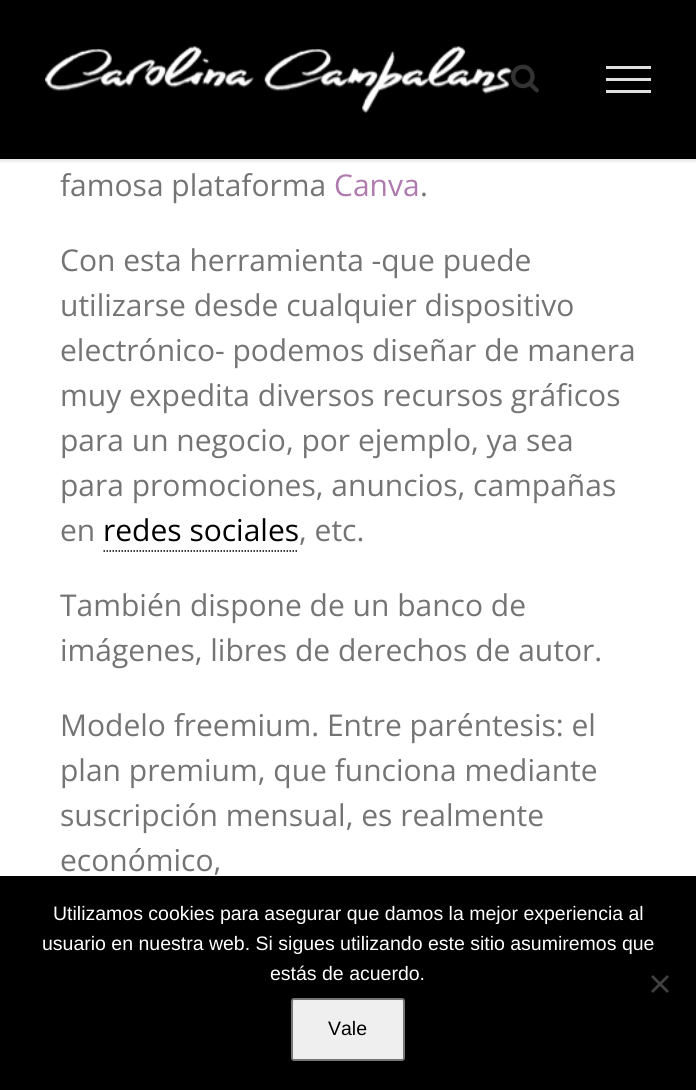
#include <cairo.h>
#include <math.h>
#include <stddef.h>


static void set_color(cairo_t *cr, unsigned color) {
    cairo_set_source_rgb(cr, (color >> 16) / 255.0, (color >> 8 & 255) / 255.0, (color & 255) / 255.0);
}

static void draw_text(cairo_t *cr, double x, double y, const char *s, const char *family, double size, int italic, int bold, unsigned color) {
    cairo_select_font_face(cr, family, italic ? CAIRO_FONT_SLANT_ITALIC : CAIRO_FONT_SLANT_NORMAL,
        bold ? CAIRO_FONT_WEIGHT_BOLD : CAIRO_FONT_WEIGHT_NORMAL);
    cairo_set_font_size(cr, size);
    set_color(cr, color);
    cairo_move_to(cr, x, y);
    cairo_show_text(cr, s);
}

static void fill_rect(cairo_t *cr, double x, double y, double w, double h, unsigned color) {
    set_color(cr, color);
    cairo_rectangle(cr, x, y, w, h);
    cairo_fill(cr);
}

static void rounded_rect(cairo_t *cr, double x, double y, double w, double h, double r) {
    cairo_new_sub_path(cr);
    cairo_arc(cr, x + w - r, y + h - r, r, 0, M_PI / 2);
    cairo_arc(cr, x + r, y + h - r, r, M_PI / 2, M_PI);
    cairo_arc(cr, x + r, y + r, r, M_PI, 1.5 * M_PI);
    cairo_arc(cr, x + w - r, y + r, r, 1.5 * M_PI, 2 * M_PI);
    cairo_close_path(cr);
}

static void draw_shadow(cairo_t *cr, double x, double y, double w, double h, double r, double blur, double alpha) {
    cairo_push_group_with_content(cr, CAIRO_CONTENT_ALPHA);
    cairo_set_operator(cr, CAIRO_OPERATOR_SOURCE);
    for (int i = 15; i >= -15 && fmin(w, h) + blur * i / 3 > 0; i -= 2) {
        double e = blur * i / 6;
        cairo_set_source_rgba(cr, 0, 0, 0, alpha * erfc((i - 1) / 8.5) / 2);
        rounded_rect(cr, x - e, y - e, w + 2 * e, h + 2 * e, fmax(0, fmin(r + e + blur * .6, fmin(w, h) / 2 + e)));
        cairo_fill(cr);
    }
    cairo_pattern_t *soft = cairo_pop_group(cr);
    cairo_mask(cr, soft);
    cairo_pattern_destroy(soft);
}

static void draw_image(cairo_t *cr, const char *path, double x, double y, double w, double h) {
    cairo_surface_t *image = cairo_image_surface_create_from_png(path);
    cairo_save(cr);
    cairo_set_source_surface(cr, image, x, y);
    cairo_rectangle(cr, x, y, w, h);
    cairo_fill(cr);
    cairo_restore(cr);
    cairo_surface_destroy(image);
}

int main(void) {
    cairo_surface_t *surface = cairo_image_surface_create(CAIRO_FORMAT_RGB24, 696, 1090);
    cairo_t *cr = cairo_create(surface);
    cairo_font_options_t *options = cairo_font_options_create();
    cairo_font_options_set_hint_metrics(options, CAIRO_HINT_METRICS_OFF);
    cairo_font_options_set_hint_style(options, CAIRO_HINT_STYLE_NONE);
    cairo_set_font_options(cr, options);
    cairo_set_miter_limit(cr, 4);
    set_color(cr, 0xFFFFFF);
    cairo_paint(cr);
    set_color(cr, 0x000000);
    draw_shadow(cr, 0, 2, 696, 159, 0, 2, 0.12);
    fill_rect(cr, 0, 0, 696, 159, 0x000000);
    draw_image(cr, "assets/img1.png", 45, 46, 467, 67);
    draw_image(cr, "assets/img2.png", 511, 64, 28, 29);
    fill_rect(cr, 606, 66, 45, 3, 0xE0E0E0);
    fill_rect(cr, 606, 78, 45, 3, 0xE0E0E0);
    fill_rect(cr, 606, 90, 45, 3, 0xE0E0E0);
    draw_text(cr, 60, 196, "famosa plataforma", "Open Sans", 30, 0, 0, 0x747474);
    draw_text(cr, 334, 196, "Canva", "Open Sans", 30, 0, 0, 0xAF7BAF);
    draw_text(cr, 420, 196, ".", "Open Sans", 30, 0, 0, 0x747474);
    draw_text(cr, 60, 271, "Con esta herramienta -que puede", "Open Sans", 30, 0, 0, 0x747474);
    draw_text(cr, 60, 316, "utilizarse desde cualquier dispositivo", "Open Sans", 30, 0, 0, 0x747474);
    draw_text(cr, 60, 361, "electrónico- podemos diseñar de manera", "Open Sans", 30, 0, 0, 0x747474);
    draw_text(cr, 60, 406, "muy expedita diversos recursos gráficos", "Open Sans", 30, 0, 0, 0x747474);
    draw_text(cr, 60, 451, "para un negocio, por ejemplo, ya sea", "Open Sans", 30, 0, 0, 0x747474);
    draw_text(cr, 60, 496, "para promociones, anuncios, campañas", "Open Sans", 30, 0, 0, 0x747474);
    draw_text(cr, 60, 541, "en", "Open Sans", 30, 0, 0, 0x747474);
    draw_text(cr, 103, 541, "redes sociales", "Open Sans", 30, 0, 0, 0x000000);
    cairo_new_path(cr);
    cairo_move_to(cr, 103.5, 551);
    cairo_line_to(cr, 298.5, 551);
    cairo_set_line_width(cr, 1.5);
    cairo_set_dash(cr, (double[]){1.5, 1.5}, 2, 0);
    cairo_stroke(cr);
    draw_text(cr, 299, 541, ", etc.", "Open Sans", 30, 0, 0, 0x747474);
    draw_text(cr, 60, 616, "También dispone de un banco de", "Open Sans", 30, 0, 0, 0x747474);
    draw_text(cr, 60, 661, "imágenes, libres de derechos de autor.", "Open Sans", 30, 0, 0, 0x747474);
    draw_text(cr, 60, 736, "Modelo freemium. Entre paréntesis: el", "Open Sans", 30, 0, 0, 0x747474);
    draw_text(cr, 60, 781, "plan premium, que funciona mediante", "Open Sans", 30, 0, 0, 0x747474);
    draw_text(cr, 60, 826, "suscripción mensual, es realmente", "Open Sans", 30, 0, 0, 0x747474);
    draw_text(cr, 60, 871, "económico,", "Open Sans", 30, 0, 0, 0x747474);
    fill_rect(cr, 0, 876, 696, 214, 0x000000);
    draw_text(cr, 53, 920, "Utilizamos cookies para asegurar que damos la mejor experiencia al", "Liberation Sans", 19.5, 0, 0, 0xFFFFFF);
    draw_text(cr, 42, 950, "usuario en nuestra web. Si sigues utilizando este sitio asumiremos que", "Liberation Sans", 19.5, 0, 0, 0xFFFFFF);
    draw_text(cr, 270, 980, "estás de acuerdo.", "Liberation Sans", 19.5, 0, 0, 0xFFFFFF);
    set_color(cr, 0x404040);
    cairo_new_path(cr);
    cairo_move_to(cr, 667, 975);
    cairo_line_to(cr, 669, 977);
    cairo_line_to(cr, 653, 993);
    cairo_line_to(cr, 651, 991);
    cairo_close_path(cr);
    cairo_fill(cr);
    cairo_new_path(cr);
    cairo_move_to(cr, 651, 977);
    cairo_line_to(cr, 653, 975);
    cairo_line_to(cr, 669, 991);
    cairo_line_to(cr, 667, 993);
    cairo_close_path(cr);
    cairo_fill(cr);
    set_color(cr, 0xEFEFEF);
    rounded_rect(cr, 292, 999, 112, 61, 2);
    cairo_fill_preserve(cr);
    set_color(cr, 0x767676);
    cairo_set_line_width(cr, 2);
    cairo_set_dash(cr, NULL, 0, 0);
    cairo_stroke(cr);
    draw_text(cr, 328, 1035, "Vale", "Liberation Sans", 19.5, 0, 0, 0x000000);
    cairo_surface_write_to_png(surface, "output.png");
    cairo_font_options_destroy(options);
    cairo_destroy(cr);
    cairo_surface_destroy(surface);
    return 0;
}
